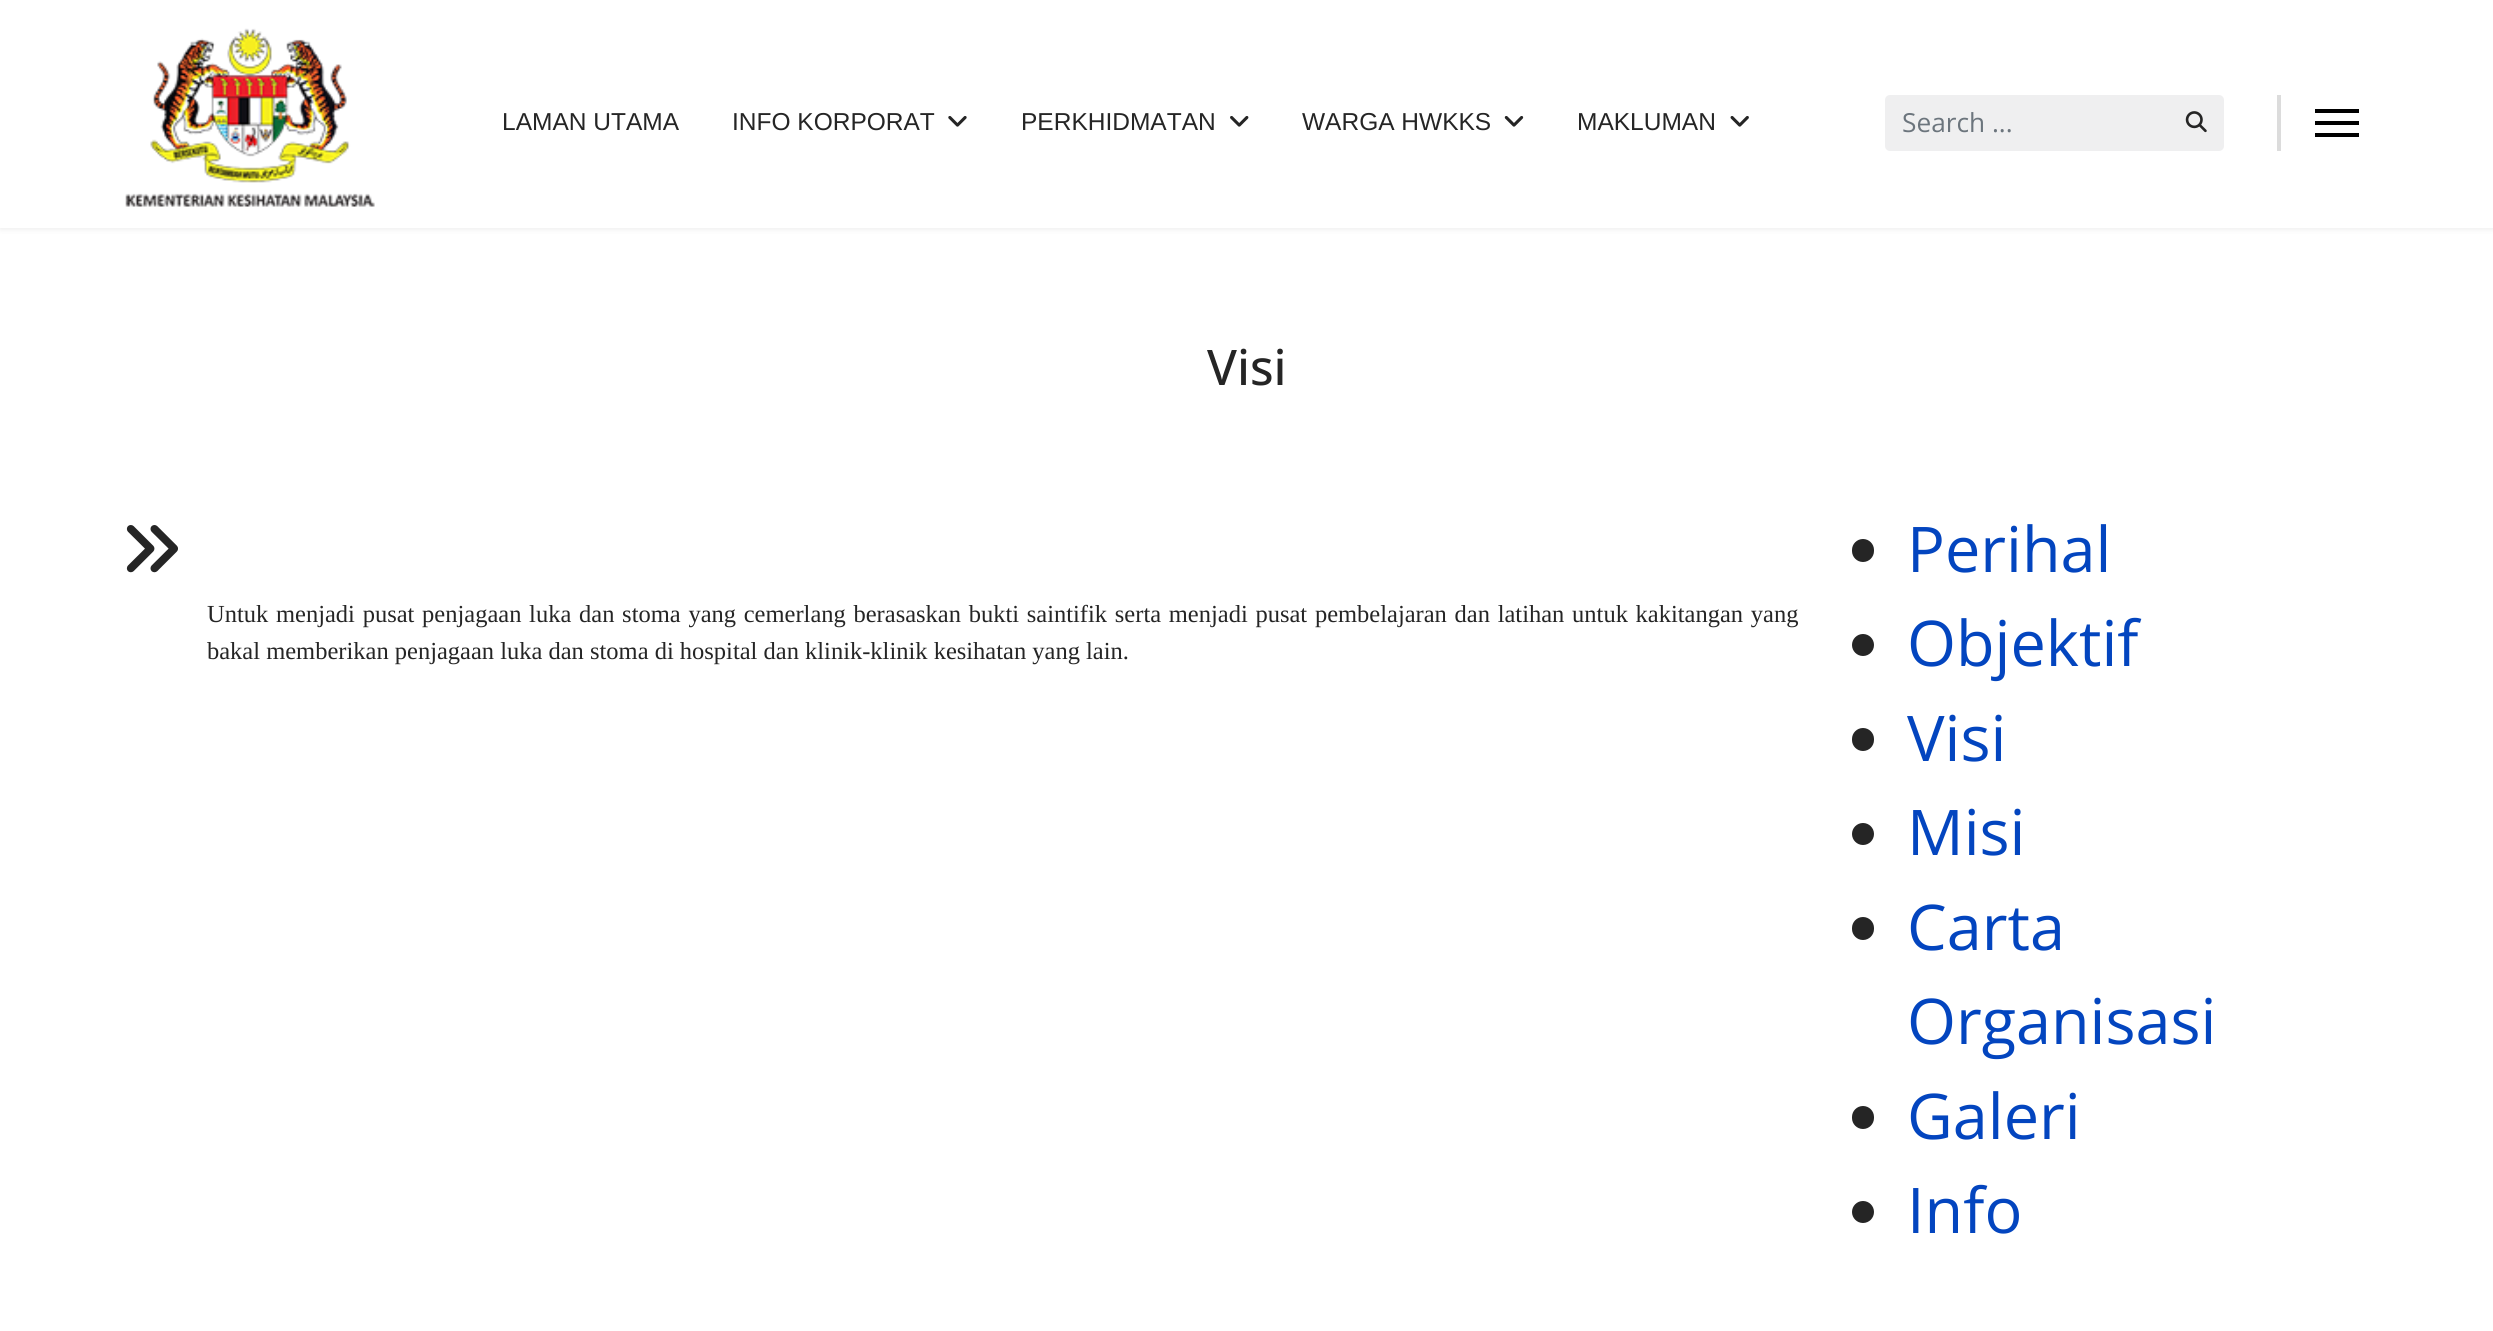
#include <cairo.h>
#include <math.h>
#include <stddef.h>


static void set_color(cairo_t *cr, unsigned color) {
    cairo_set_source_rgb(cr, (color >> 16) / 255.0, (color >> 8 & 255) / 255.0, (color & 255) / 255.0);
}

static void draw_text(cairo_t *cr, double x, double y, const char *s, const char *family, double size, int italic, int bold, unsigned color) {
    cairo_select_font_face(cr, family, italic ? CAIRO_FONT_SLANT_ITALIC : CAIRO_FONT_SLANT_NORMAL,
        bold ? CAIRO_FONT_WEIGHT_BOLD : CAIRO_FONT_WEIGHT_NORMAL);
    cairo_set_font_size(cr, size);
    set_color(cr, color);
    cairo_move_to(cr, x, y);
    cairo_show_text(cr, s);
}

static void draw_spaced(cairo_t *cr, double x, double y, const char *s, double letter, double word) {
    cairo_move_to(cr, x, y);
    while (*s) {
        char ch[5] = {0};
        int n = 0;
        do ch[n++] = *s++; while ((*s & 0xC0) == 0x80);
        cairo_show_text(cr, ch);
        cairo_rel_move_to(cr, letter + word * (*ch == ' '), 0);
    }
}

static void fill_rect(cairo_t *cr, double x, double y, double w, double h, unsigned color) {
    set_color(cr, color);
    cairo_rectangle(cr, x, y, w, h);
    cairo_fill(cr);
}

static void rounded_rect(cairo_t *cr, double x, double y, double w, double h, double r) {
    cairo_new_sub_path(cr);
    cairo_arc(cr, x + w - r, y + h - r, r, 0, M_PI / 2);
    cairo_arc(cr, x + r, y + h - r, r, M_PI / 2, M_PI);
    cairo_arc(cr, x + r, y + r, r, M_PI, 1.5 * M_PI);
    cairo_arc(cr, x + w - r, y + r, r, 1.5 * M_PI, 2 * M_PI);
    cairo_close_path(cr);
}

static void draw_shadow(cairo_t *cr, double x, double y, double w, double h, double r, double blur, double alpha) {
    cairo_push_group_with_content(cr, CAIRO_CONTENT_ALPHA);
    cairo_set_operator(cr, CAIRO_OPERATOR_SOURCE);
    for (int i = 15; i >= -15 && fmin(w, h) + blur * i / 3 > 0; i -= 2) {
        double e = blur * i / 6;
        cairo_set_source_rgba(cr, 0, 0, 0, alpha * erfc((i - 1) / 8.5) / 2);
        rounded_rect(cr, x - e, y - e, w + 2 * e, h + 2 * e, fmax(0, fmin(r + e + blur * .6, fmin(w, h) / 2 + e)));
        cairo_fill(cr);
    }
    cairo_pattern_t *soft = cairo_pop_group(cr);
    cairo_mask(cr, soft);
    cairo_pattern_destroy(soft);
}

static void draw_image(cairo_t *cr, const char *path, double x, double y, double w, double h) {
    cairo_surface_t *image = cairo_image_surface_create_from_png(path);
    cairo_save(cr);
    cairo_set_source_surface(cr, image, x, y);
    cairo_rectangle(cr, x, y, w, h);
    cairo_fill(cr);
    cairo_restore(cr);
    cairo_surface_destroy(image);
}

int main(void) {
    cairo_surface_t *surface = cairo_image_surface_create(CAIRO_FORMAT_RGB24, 2493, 1331);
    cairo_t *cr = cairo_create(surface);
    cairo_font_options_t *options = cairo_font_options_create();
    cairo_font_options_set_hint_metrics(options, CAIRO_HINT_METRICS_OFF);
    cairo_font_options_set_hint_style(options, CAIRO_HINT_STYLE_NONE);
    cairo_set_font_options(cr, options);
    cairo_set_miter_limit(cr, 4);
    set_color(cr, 0xFFFFFF);
    cairo_paint(cr);
    set_color(cr, 0x000000);
    draw_shadow(cr, 0, 0, 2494, 228, 0, 3.5, 0.1);
    fill_rect(cr, 0, 0, 2493, 228, 0xFFFFFF);
    draw_image(cr, "assets/img1.png", 125, 28, 250, 179);
    draw_text(cr, 502, 130, "LAMAN UTAMA", "Liberation Sans", 24.5, 0, 0, 0x252525);
    draw_text(cr, 732, 130, "INFO KORPORAT", "Liberation Sans", 24.5, 0, 0, 0x252525);
    draw_image(cr, "assets/img2.png", 948, 116, 19, 11);
    draw_text(cr, 1021, 130, "PERKHIDMATAN", "Liberation Sans", 24.5, 0, 0, 0x252525);
    draw_image(cr, "assets/img3.png", 1230, 116, 19, 11);
    draw_text(cr, 1302, 130, "WARGA HWKKS", "Liberation Sans", 24.5, 0, 0, 0x252525);
    draw_image(cr, "assets/img4.png", 1504, 116, 20, 11);
    draw_text(cr, 1577, 130, "MAKLUMAN", "Liberation Sans", 24.5, 0, 0, 0x252525);
    draw_image(cr, "assets/img5.png", 1730, 116, 19, 11);
    fill_rect(cr, 2277, 95, 4, 56, 0xDCDCDC);
    set_color(cr, 0xEFEFF0);
    rounded_rect(cr, 1885, 95, 339, 56, 5);
    cairo_fill(cr);
    draw_text(cr, 1902, 132, "Search ...", "Open Sans", 26.25, 0, 0, 0x6C757D);
    draw_image(cr, "assets/img6.png", 2185, 111, 22, 22);
    fill_rect(cr, 2315, 109, 44, 4, 0x000000);
    fill_rect(cr, 2315, 121, 44, 4, 0x000000);
    fill_rect(cr, 2315, 133, 44, 4, 0x000000);
    draw_text(cr, 1207, 385, "Visi", "Open Sans Medium", 49, 0, 0, 0x252525);
    draw_image(cr, "assets/img7.png", 126, 525, 52, 48);
    cairo_select_font_face(cr, "Liberation Serif", CAIRO_FONT_SLANT_NORMAL, CAIRO_FONT_WEIGHT_NORMAL);
    cairo_set_font_size(cr, 24.5);
    draw_spaced(cr, 207, 622, "Untuk menjadi pusat penjagaan luka dan stoma yang cemerlang berasaskan bukti saintifik serta menjadi pusat pembelajaran dan latihan untuk kakitangan yang", 0, 1.6);
    draw_text(cr, 207, 659, "bakal memberikan penjagaan luka dan stoma di hospital dan klinik-klinik kesihatan yang lain.", "Liberation Serif", 24.5, 0, 0, 0x252525);
    rounded_rect(cr, 1852, 539, 22, 23, 11);
    cairo_fill(cr);
    draw_text(cr, 1907, 572, "Perihal", "Open Sans", 63, 0, 0, 0x0345BF);
    set_color(cr, 0x252525);
    cairo_new_path(cr);
    cairo_arc(cr, 1863, 645, 11, 0, 2 * M_PI);
    cairo_fill(cr);
    draw_text(cr, 1907, 666, "Objektif", "Open Sans", 63, 0, 0, 0x0345BF);
    set_color(cr, 0x252525);
    rounded_rect(cr, 1852, 728, 22, 23, 11);
    cairo_fill(cr);
    draw_text(cr, 1907, 761, "Visi", "Open Sans", 63, 0, 0, 0x0345BF);
    set_color(cr, 0x252525);
    cairo_new_path(cr);
    cairo_arc(cr, 1863, 834, 11, 0, 2 * M_PI);
    cairo_fill(cr);
    draw_text(cr, 1907, 855, "Misi", "Open Sans", 63, 0, 0, 0x0345BF);
    set_color(cr, 0x252525);
    rounded_rect(cr, 1852, 917, 22, 23, 11);
    cairo_fill(cr);
    draw_text(cr, 1907, 950, "Carta", "Open Sans", 63, 0, 0, 0x0345BF);
    draw_text(cr, 1907, 1044, "Organisasi", "Open Sans", 63, 0, 0, 0x0345BF);
    set_color(cr, 0x252525);
    rounded_rect(cr, 1852, 1106, 22, 23, 11);
    cairo_fill(cr);
    draw_text(cr, 1907, 1139, "Galeri", "Open Sans", 63, 0, 0, 0x0345BF);
    set_color(cr, 0x252525);
    cairo_new_path(cr);
    cairo_arc(cr, 1863, 1212, 11, 0, 2 * M_PI);
    cairo_fill(cr);
    draw_text(cr, 1907, 1233, "Info", "Open Sans", 63, 0, 0, 0x0345BF);
    cairo_surface_write_to_png(surface, "output.png");
    cairo_font_options_destroy(options);
    cairo_destroy(cr);
    cairo_surface_destroy(surface);
    return 0;
}
